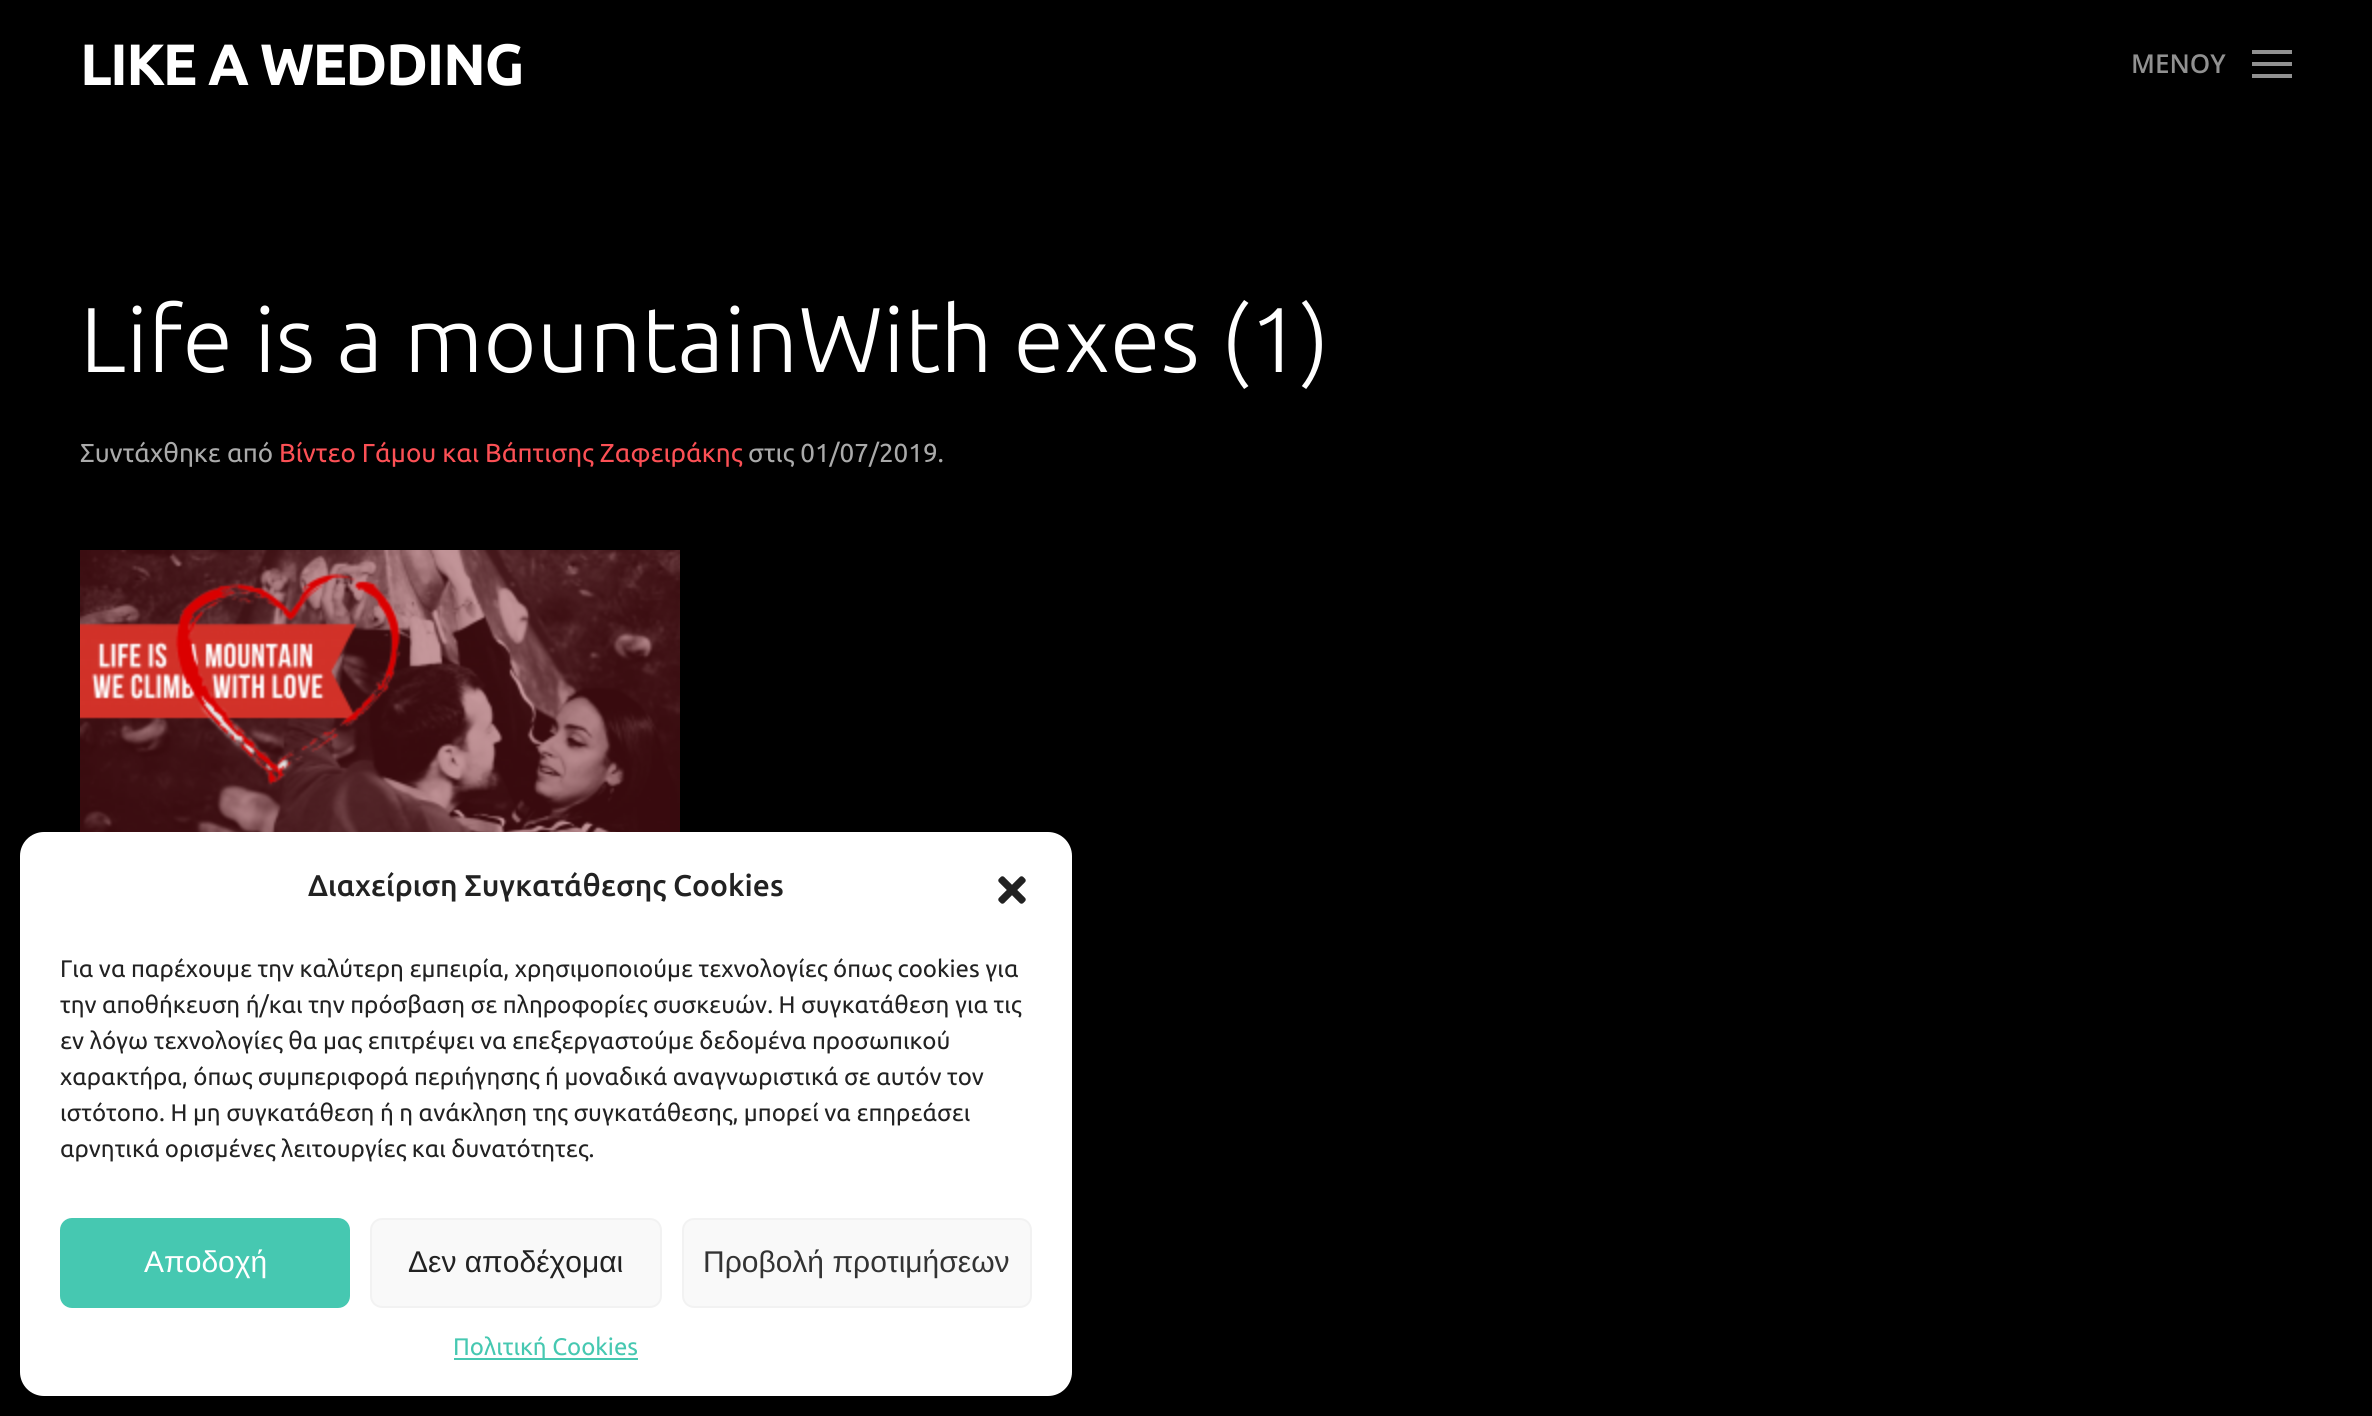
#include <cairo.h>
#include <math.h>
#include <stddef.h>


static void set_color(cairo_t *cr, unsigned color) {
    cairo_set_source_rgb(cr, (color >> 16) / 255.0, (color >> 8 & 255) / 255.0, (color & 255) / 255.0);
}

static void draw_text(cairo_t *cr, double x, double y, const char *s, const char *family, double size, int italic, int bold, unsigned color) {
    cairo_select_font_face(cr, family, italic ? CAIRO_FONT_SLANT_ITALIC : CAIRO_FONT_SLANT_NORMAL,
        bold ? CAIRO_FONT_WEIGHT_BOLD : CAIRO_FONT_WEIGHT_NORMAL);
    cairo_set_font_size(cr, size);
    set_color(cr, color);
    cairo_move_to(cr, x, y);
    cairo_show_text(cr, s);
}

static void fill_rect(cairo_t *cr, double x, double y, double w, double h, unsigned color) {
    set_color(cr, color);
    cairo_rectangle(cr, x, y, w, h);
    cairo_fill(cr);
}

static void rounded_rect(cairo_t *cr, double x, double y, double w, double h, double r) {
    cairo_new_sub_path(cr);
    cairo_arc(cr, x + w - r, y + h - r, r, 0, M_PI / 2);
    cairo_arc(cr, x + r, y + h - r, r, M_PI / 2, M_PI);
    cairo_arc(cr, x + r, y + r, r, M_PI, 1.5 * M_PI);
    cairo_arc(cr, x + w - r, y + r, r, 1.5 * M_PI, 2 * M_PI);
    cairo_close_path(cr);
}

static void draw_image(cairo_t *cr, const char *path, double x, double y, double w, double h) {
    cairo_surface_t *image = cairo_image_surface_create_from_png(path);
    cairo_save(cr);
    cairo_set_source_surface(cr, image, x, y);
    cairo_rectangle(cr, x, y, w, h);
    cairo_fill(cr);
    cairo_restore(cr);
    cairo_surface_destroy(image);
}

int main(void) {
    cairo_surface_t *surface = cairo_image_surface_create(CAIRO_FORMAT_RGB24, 2372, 1416);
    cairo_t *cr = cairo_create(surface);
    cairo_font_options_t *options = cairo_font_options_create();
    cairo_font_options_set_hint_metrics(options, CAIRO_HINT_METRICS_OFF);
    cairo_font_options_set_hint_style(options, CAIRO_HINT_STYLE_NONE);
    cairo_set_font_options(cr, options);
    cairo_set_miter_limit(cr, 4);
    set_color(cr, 0x000000);
    cairo_paint(cr);
    draw_text(cr, 80, 85, "LIKE A WEDDING", "Ubuntu", 56, 0, 1, 0xFFFFFF);
    draw_text(cr, 2131, 73, "ΜΕΝΟΥ", "Open Sans SemiBold", 26, 0, 0, 0x919191);
    fill_rect(cr, 2252, 50, 40, 4, 0x919191);
    fill_rect(cr, 2252, 62, 40, 4, 0x919191);
    fill_rect(cr, 2252, 74, 40, 4, 0x919191);
    draw_text(cr, 80, 372, "Life is a mountainWith exes (1)", "Ubuntu Light", 92, 0, 0, 0xFFFFFF);
    draw_text(cr, 80, 462, "Συντάχθηκε από", "Ubuntu", 26, 0, 0, 0xAAAAAA);
    draw_text(cr, 279, 462, "Βίντεο Γάμου και Βάπτισης Ζαφειράκης", "Ubuntu", 26, 0, 0, 0xFC5055);
    draw_text(cr, 748, 462, "στις 01/07/2019.", "Ubuntu", 26, 0, 0, 0xAAAAAA);
    draw_image(cr, "assets/img1.png", 80, 550, 600, 282);
    set_color(cr, 0xFFFFFF);
    rounded_rect(cr, 20, 832, 1052, 564, 24);
    cairo_fill(cr);
    draw_text(cr, 308, 896, "Διαχείριση Συγκατάθεσης Cookies", "Ubuntu Medium", 30, 0, 0, 0x222222);
    draw_image(cr, "assets/img2.png", 998, 876, 28, 28);
    draw_text(cr, 60, 977, "Για να παρέχουμε την καλύτερη εμπειρία, χρησιμοποιούμε τεχνολογίες όπως cookies για", "Ubuntu", 24, 0, 0, 0x222222);
    draw_text(cr, 60, 1013, "την αποθήκευση ή/και την πρόσβαση σε πληροφορίες συσκευών. Η συγκατάθεση για τις", "Ubuntu", 24, 0, 0, 0x222222);
    draw_text(cr, 60, 1049, "εν λόγω τεχνολογίες θα μας επιτρέψει να επεξεργαστούμε δεδομένα προσωπικού", "Ubuntu", 24, 0, 0, 0x222222);
    draw_text(cr, 60, 1085, "χαρακτήρα, όπως συμπεριφορά περιήγησης ή μοναδικά αναγνωριστικά σε αυτόν τον", "Ubuntu", 24, 0, 0, 0x222222);
    draw_text(cr, 60, 1121, "ιστότοπο. Η μη συγκατάθεση ή η ανάκληση της συγκατάθεσης, μπορεί να επηρεάσει", "Ubuntu", 24, 0, 0, 0x222222);
    draw_text(cr, 60, 1157, "αρνητικά ορισμένες λειτουργίες και δυνατότητες.", "Ubuntu", 24, 0, 0, 0x222222);
    set_color(cr, 0x46C8B1);
    rounded_rect(cr, 61, 1219, 288, 88, 11);
    cairo_fill_preserve(cr);
    cairo_stroke(cr);
    draw_text(cr, 144, 1272, "Αποδοχή", "Liberation Sans", 30, 0, 0, 0xFFFFFF);
    set_color(cr, 0xF9F9F9);
    rounded_rect(cr, 371, 1219, 290, 88, 11);
    cairo_fill_preserve(cr);
    set_color(cr, 0xF2F2F2);
    cairo_stroke(cr);
    draw_text(cr, 408, 1272, "Δεν αποδέχομαι", "Liberation Sans", 30, 0, 0, 0x222222);
    set_color(cr, 0xF9F9F9);
    rounded_rect(cr, 683, 1219, 348, 88, 11);
    cairo_fill_preserve(cr);
    set_color(cr, 0xF2F2F2);
    cairo_stroke(cr);
    draw_text(cr, 703, 1272, "Προβολή προτιμήσεων", "Liberation Sans", 30, 0, 0, 0x333333);
    fill_rect(cr, 454, 1358, 184, 2, 0x46C8B1);
    draw_text(cr, 453, 1355, "Πολιτική Cookies", "Ubuntu", 24, 0, 0, 0x46C8B1);
    cairo_surface_write_to_png(surface, "output.png");
    cairo_font_options_destroy(options);
    cairo_destroy(cr);
    cairo_surface_destroy(surface);
    return 0;
}
